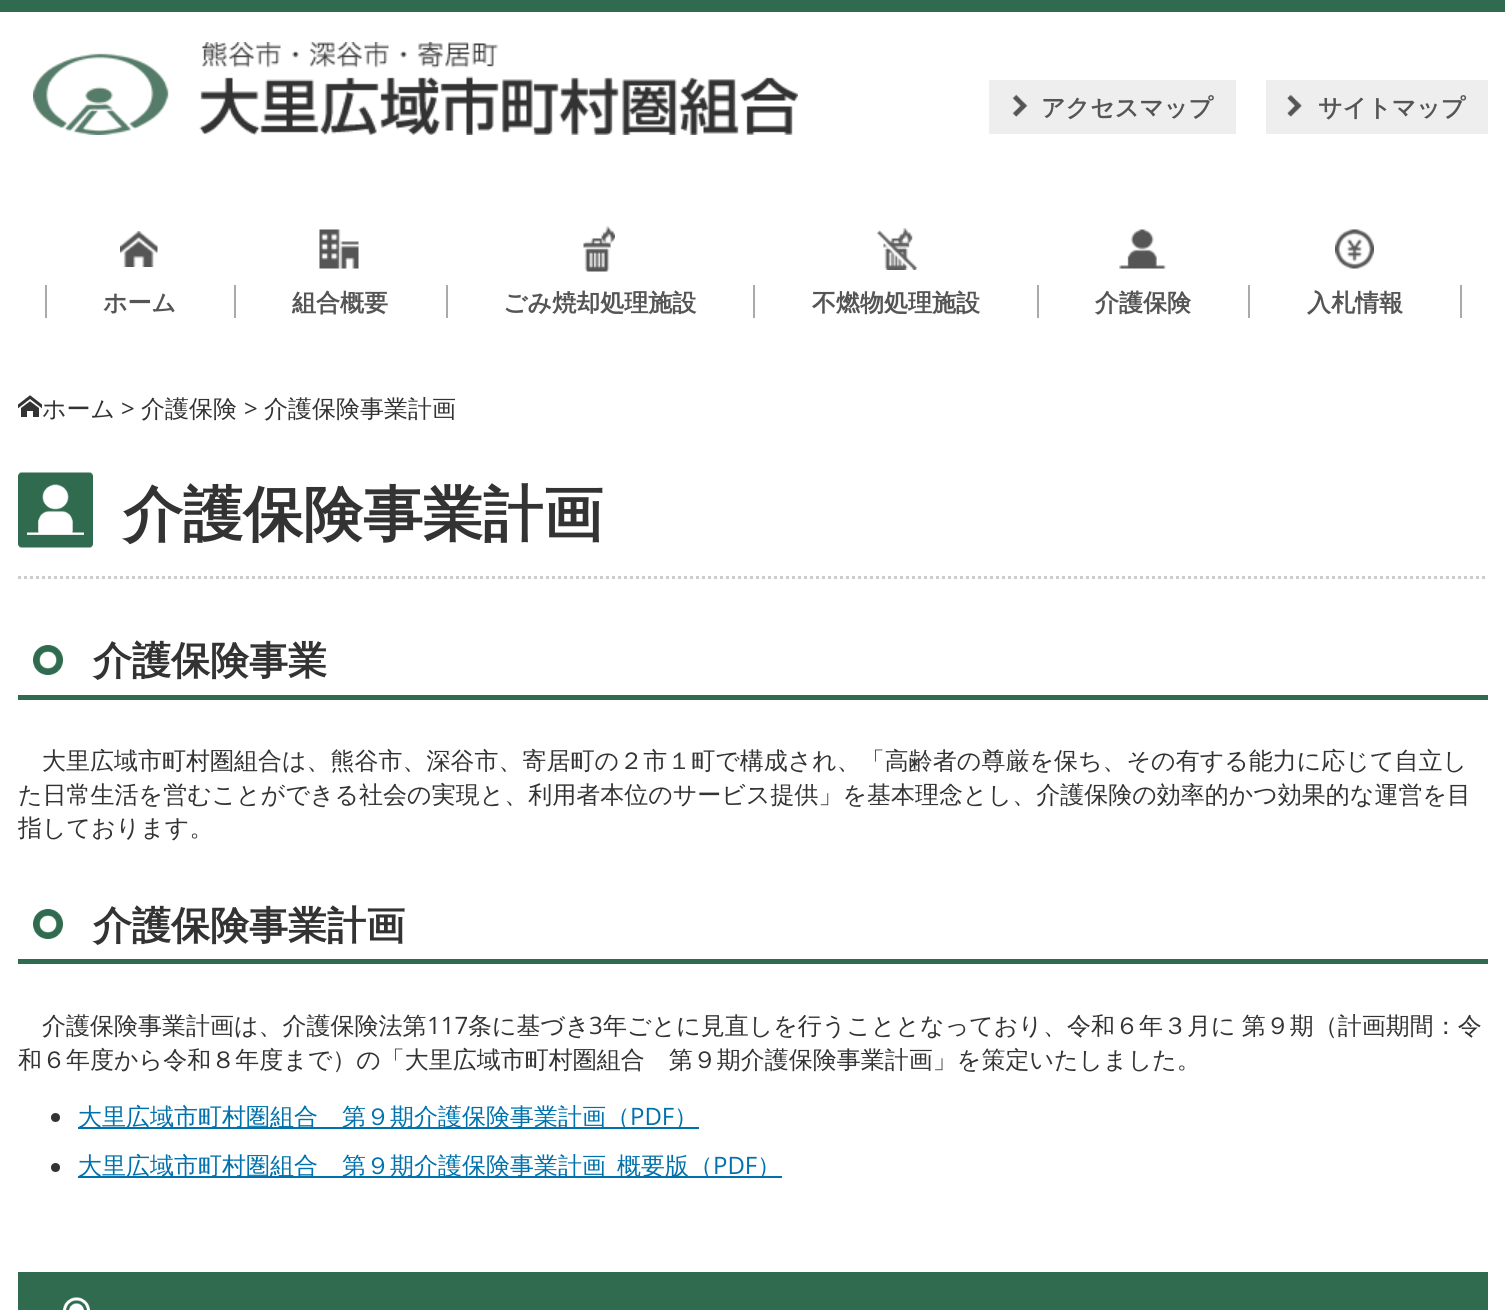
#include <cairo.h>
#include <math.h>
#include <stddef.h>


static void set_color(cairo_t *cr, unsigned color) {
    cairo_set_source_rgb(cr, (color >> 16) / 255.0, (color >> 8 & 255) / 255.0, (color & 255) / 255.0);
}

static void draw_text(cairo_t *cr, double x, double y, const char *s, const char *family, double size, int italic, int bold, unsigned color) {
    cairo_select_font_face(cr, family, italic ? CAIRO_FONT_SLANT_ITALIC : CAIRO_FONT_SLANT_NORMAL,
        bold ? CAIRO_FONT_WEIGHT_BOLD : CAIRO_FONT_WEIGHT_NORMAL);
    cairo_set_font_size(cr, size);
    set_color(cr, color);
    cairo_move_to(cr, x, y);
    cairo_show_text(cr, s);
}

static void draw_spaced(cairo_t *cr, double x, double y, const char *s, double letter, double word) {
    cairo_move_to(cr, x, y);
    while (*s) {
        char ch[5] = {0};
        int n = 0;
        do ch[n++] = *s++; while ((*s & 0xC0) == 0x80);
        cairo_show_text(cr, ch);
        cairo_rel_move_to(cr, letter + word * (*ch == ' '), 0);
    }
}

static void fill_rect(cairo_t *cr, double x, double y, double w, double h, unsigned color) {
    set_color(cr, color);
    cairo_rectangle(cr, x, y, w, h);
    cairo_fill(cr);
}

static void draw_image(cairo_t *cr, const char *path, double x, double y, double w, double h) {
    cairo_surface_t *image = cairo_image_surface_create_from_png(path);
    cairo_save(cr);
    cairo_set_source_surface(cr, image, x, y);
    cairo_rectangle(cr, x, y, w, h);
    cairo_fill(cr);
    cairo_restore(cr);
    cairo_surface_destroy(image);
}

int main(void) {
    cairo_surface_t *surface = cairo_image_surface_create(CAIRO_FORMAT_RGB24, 1505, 1310);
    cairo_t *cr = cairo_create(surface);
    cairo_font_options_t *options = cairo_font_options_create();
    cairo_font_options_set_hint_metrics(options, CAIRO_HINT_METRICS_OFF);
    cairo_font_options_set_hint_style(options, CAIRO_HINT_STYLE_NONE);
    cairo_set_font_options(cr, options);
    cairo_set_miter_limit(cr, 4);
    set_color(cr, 0xFFFFFF);
    cairo_paint(cr);
    fill_rect(cr, 0, 0, 1505, 12, 0x306B50);
    draw_image(cr, "assets/img1.png", 33, 42, 765, 93);
    fill_rect(cr, 989, 80, 247, 54, 0xEEEEEE);
    draw_image(cr, "assets/img2.png", 1012, 94, 16, 23);
    draw_text(cr, 1041, 116, "アクセスマップ", "WenQuanYi Zen Hei", 24, 0, 1, 0x555555);
    fill_rect(cr, 1266, 80, 222, 54, 0xEEEEEE);
    draw_image(cr, "assets/img3.png", 1287, 94, 15, 23);
    draw_text(cr, 1318, 116, "サイトマップ", "WenQuanYi Zen Hei", 24, 0, 1, 0x555555);
    draw_image(cr, "assets/img4.png", 120, 231, 38, 36);
    draw_text(cr, 103, 311, "ホーム", "WenQuanYi Zen Hei", 24, 0, 1, 0x555555);
    fill_rect(cr, 45, 285, 2, 33, 0xAAAAAA);
    draw_image(cr, "assets/img5.png", 319, 229, 40, 40);
    draw_text(cr, 292, 311, "組合概要", "WenQuanYi Zen Hei", 24, 0, 1, 0x555555);
    fill_rect(cr, 234, 285, 2, 33, 0xAAAAAA);
    draw_image(cr, "assets/img6.png", 583, 226, 32, 46);
    draw_text(cr, 503, 311, "ごみ焼却処理施設", "WenQuanYi Zen Hei", 24, 0, 1, 0x555555);
    fill_rect(cr, 446, 285, 2, 33, 0xAAAAAA);
    draw_image(cr, "assets/img7.png", 877, 228, 40, 42);
    draw_text(cr, 812, 311, "不燃物処理施設", "WenQuanYi Zen Hei", 24, 0, 1, 0x555555);
    fill_rect(cr, 753, 285, 2, 33, 0xAAAAAA);
    draw_image(cr, "assets/img8.png", 1119, 229, 47, 40);
    draw_text(cr, 1095, 311, "介護保険", "WenQuanYi Zen Hei", 24, 0, 1, 0x555555);
    fill_rect(cr, 1037, 285, 2, 33, 0xAAAAAA);
    draw_image(cr, "assets/img9.png", 1335, 229, 39, 40);
    draw_text(cr, 1307, 311, "入札情報", "WenQuanYi Zen Hei", 24, 0, 1, 0x555555);
    fill_rect(cr, 1460, 285, 2, 33, 0xAAAAAA);
    fill_rect(cr, 1248, 285, 2, 33, 0xAAAAAA);
    draw_image(cr, "assets/img10.png", 18, 395, 24, 22);
    draw_text(cr, 42, 417, "ホーム", "WenQuanYi Zen Hei Medium", 24, 0, 0, 0x333333);
    draw_text(cr, 121, 417, ">", "Open Sans", 24, 0, 0, 0x333333);
    draw_text(cr, 141, 417, "介護保険", "WenQuanYi Zen Hei Medium", 24, 0, 0, 0x333333);
    draw_text(cr, 244, 417, ">", "Open Sans", 24, 0, 0, 0x333333);
    draw_text(cr, 264, 417, "介護保険事業計画", "WenQuanYi Zen Hei Medium", 24, 0, 0, 0x333333);
    cairo_new_path(cr);
    cairo_move_to(cr, 18, 577.5);
    cairo_line_to(cr, 1488, 577.5);
    set_color(cr, 0xCCCCCC);
    cairo_set_line_width(cr, 3);
    cairo_set_dash(cr, (double[]){3, 3}, 2, 0);
    cairo_stroke(cr);
    draw_image(cr, "assets/img11.png", 18, 472, 75, 76);
    draw_text(cr, 123, 535, "介護保険事業計画", "WenQuanYi Zen Hei", 60, 0, 1, 0x333333);
    draw_image(cr, "assets/img12.png", 33, 645, 30, 30);
    fill_rect(cr, 18, 695, 1470, 5, 0x306B50);
    draw_text(cr, 93, 674, "介護保険事業", "WenQuanYi Zen Hei", 39, 0, 1, 0x333333);
    draw_text(cr, 42, 769, "大里広域市町村圏組合は、熊谷市、深谷市、寄居町の２市１町で構成され、「高齢者の尊厳を保ち、その有する能力に応じて自立し", "WenQuanYi Zen Hei Medium", 24, 0, 0, 0x333333);
    draw_text(cr, 18, 803, "た日常生活を営むことができる社会の実現と、利用者本位のサービス提供」を基本理念とし、介護保険の効率的かつ効果的な運営を目", "WenQuanYi Zen Hei Medium", 24, 0, 0, 0x333333);
    draw_text(cr, 18, 836, "指しております。", "WenQuanYi Zen Hei Medium", 24, 0, 0, 0x333333);
    draw_image(cr, "assets/img12.png", 33, 909, 30, 30);
    fill_rect(cr, 18, 959, 1470, 5, 0x306B50);
    draw_text(cr, 93, 939, "介護保険事業計画", "WenQuanYi Zen Hei", 39, 0, 1, 0x333333);
    draw_text(cr, 42, 1034, "介護保険事業計画は、介護保険法第", "WenQuanYi Zen Hei Medium", 24, 0, 0, 0x333333);
    draw_text(cr, 427, 1034, "117", "Open Sans", 24, 0, 0, 0x333333);
    draw_text(cr, 468, 1034, "条に基づき", "WenQuanYi Zen Hei Medium", 24, 0, 0, 0x333333);
    draw_text(cr, 589, 1034, "3", "Open Sans", 24, 0, 0, 0x333333);
    cairo_select_font_face(cr, "WenQuanYi Zen Hei Medium", CAIRO_FONT_SLANT_NORMAL, CAIRO_FONT_WEIGHT_NORMAL);
    draw_spaced(cr, 603, 1034, "年ごとに見直しを行うこととなっており、令和６年３月に 第９期（計画期間：令", 0, -1);
    draw_text(cr, 18, 1068, "和６年度から令和８年度まで）の「大里広域市町村圏組合　第９期介護保険事業計画」を策定いたしました。", "WenQuanYi Zen Hei Medium", 24, 0, 0, 0x333333);
    cairo_new_path(cr);
    cairo_arc(cr, 55.5, 1117.5, 4.5, 0, 2 * M_PI);
    cairo_fill(cr);
    fill_rect(cr, 78, 1127, 621, 2, 0x0071AC);
    draw_text(cr, 78, 1125, "大里広域市町村圏組合　第９期介護保険事業計画（", "WenQuanYi Zen Hei Medium", 24, 0, 0, 0x0071AC);
    draw_text(cr, 630, 1125, "PDF", "Open Sans", 24, 0, 0, 0x0071AC);
    draw_text(cr, 674, 1125, "）", "WenQuanYi Zen Hei Medium", 24, 0, 0, 0x0071AC);
    set_color(cr, 0x333333);
    cairo_new_path(cr);
    cairo_arc(cr, 55.5, 1167.5, 4.5, 0, 2 * M_PI);
    cairo_fill(cr);
    fill_rect(cr, 78, 1176, 704, 2, 0x0071AC);
    draw_text(cr, 78, 1174, "大里広域市町村圏組合　第９期介護保険事業計画", "WenQuanYi Zen Hei Medium", 24, 0, 0, 0x0071AC);
    draw_text(cr, 617, 1174, "概要版（", "WenQuanYi Zen Hei Medium", 24, 0, 0, 0x0071AC);
    draw_text(cr, 713, 1174, "PDF", "Open Sans", 24, 0, 0, 0x0071AC);
    draw_text(cr, 757, 1174, "）", "WenQuanYi Zen Hei Medium", 24, 0, 0, 0x0071AC);
    fill_rect(cr, 18, 1272, 1470, 38, 0x306B50);
    draw_image(cr, "assets/img13.png", 63, 1297, 27, 13);
    cairo_surface_write_to_png(surface, "output.png");
    cairo_font_options_destroy(options);
    cairo_destroy(cr);
    cairo_surface_destroy(surface);
    return 0;
}
